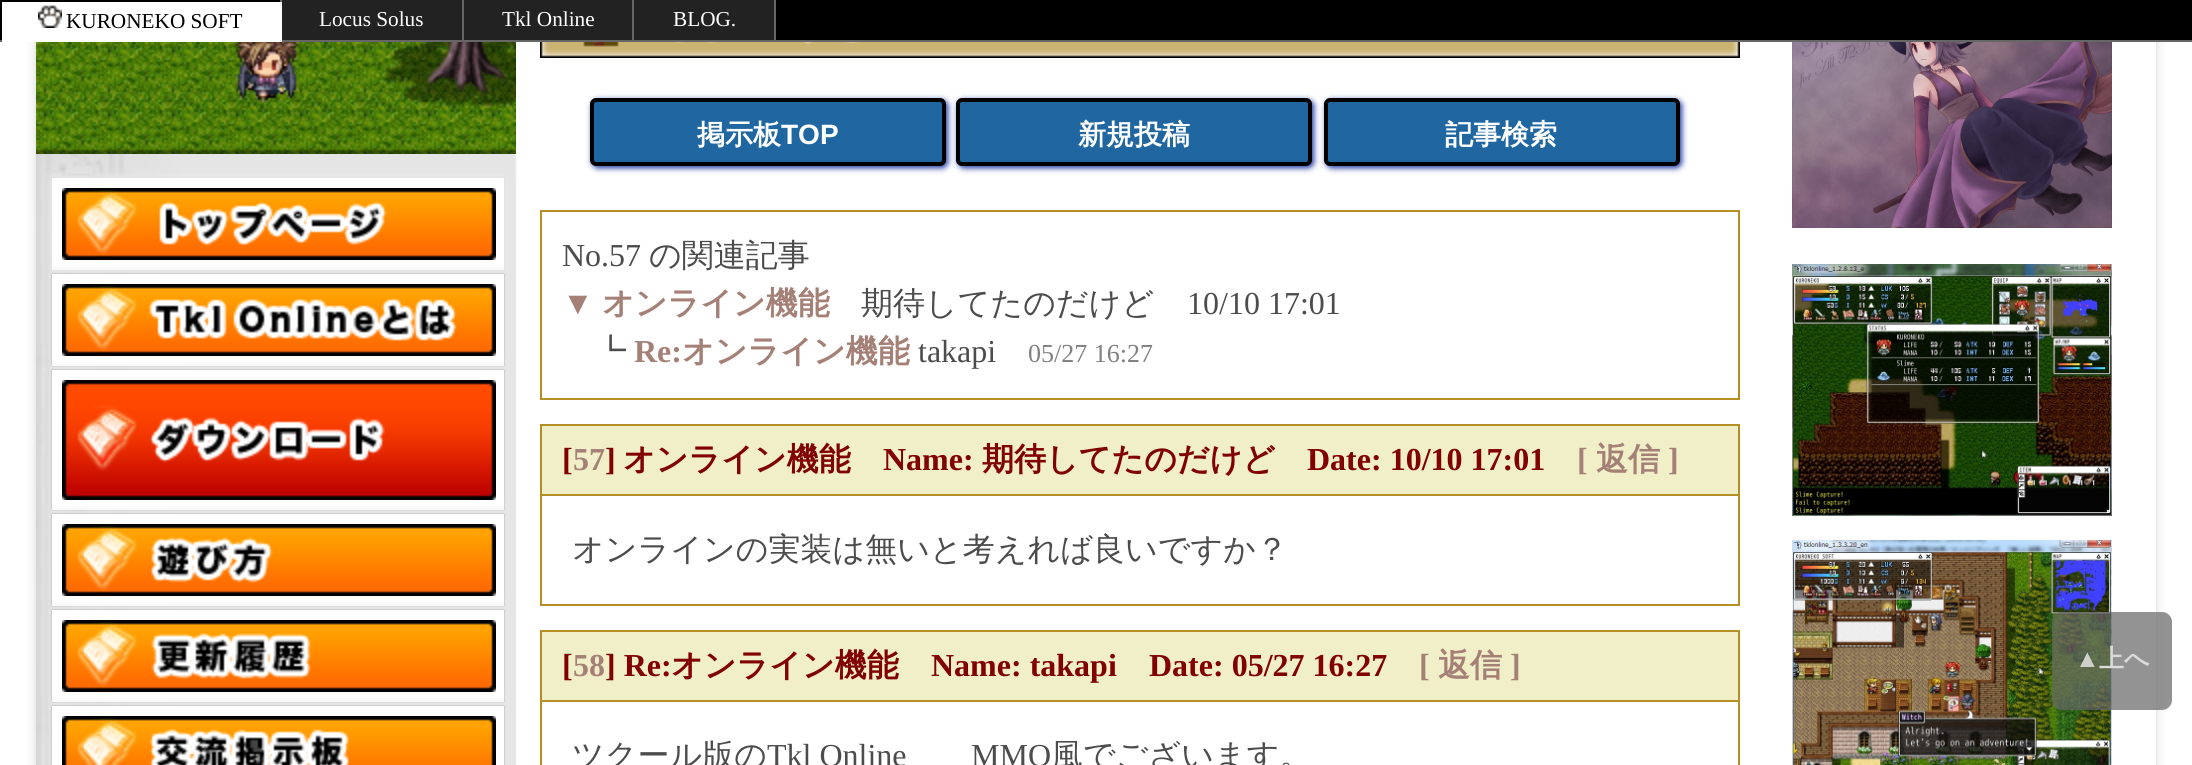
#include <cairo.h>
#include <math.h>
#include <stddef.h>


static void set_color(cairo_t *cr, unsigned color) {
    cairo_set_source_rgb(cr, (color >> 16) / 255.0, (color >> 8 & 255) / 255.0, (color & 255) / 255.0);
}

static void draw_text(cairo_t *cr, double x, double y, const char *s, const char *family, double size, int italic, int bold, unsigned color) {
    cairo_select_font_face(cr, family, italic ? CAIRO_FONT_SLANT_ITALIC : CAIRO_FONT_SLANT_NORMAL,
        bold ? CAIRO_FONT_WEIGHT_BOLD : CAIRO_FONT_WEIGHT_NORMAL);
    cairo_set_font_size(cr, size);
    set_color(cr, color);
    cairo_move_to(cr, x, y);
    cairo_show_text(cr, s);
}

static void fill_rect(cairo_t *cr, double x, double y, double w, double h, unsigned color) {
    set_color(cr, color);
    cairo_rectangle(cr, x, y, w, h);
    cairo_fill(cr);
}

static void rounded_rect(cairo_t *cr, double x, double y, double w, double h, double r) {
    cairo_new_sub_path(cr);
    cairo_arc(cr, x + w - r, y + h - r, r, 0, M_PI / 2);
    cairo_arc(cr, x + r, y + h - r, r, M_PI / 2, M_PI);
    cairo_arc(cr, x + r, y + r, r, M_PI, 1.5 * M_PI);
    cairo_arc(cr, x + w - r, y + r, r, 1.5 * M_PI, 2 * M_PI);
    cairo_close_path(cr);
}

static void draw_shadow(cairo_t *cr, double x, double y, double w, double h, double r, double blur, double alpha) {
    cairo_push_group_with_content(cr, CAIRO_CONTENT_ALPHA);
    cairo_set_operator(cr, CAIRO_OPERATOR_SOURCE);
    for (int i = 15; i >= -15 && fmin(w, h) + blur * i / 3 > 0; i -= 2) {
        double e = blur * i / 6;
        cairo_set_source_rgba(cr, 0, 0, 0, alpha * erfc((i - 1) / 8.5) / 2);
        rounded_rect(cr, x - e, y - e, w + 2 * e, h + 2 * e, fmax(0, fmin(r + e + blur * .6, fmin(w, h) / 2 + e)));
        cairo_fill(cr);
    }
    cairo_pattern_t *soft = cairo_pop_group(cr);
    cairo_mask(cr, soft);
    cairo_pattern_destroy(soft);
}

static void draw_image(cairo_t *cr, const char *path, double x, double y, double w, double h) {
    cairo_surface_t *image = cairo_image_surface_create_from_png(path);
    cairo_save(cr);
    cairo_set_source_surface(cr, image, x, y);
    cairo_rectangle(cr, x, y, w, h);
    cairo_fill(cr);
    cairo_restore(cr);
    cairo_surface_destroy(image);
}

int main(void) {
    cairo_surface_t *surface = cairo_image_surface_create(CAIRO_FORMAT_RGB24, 2192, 765);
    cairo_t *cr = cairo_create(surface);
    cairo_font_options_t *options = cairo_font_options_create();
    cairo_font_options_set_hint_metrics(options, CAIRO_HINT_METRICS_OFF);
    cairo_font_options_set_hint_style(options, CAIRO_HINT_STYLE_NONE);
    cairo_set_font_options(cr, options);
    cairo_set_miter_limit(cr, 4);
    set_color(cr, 0xFFFFFF);
    cairo_paint(cr);
    cairo_save(cr);
    cairo_set_fill_rule(cr, CAIRO_FILL_RULE_EVEN_ODD);
    cairo_new_path(cr);
    cairo_move_to(cr, 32, 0);
    cairo_line_to(cr, 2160, 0);
    cairo_line_to(cr, 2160, 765);
    cairo_line_to(cr, 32, 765);
    cairo_close_path(cr);
    cairo_move_to(cr, 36, -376);
    cairo_line_to(cr, 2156, -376);
    cairo_line_to(cr, 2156, 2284);
    cairo_line_to(cr, 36, 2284);
    cairo_close_path(cr);
    cairo_clip(cr);
    set_color(cr, 0xAAAAAA);
    draw_shadow(cr, 36, -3, 2120, 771, 0, 1, 1);
    cairo_restore(cr);
    cairo_save(cr);
    cairo_set_fill_rule(cr, CAIRO_FILL_RULE_EVEN_ODD);
    cairo_new_path(cr);
    cairo_move_to(cr, 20, 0);
    cairo_line_to(cr, 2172, 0);
    cairo_line_to(cr, 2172, 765);
    cairo_line_to(cr, 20, 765);
    cairo_close_path(cr);
    cairo_move_to(cr, 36, -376);
    cairo_line_to(cr, 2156, -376);
    cairo_line_to(cr, 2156, 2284);
    cairo_line_to(cr, 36, 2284);
    cairo_close_path(cr);
    cairo_clip(cr);
    set_color(cr, 0xCCCCCC);
    draw_shadow(cr, 36, -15, 2120, 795, 0, 5, 1);
    set_color(cr, 0xFFFFFF);
    draw_shadow(cr, 36, -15, 2120, 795, 0, 5, 1);
    cairo_restore(cr);
    fill_rect(cr, 0, 0, 2192, 40, 0x000000);
    fill_rect(cr, 0, 40, 2192, 2, 0x666666);
    fill_rect(cr, 280, 0, 2, 2, 0x666666);
    fill_rect(cr, 2, 2, 280, 40, 0xFFFFFF);
    draw_image(cr, "assets/img1.png", 38, 5, 24, 23);
    draw_text(cr, 66, 28, "KURONEKO SOFT", "Liberation Serif", 21.25, 0, 0, 0x000000);
    fill_rect(cr, 462, 0, 2, 40, 0x666666);
    fill_rect(cr, 282, 0, 180, 40, 0x222222);
    draw_text(cr, 319, 26, "Locus Solus", "Liberation Serif", 21.25, 0, 0, 0xFFFFFF);
    fill_rect(cr, 632, 0, 2, 40, 0x666666);
    fill_rect(cr, 464, 0, 168, 40, 0x222222);
    draw_text(cr, 502, 26, "Tkl Online", "Liberation Serif", 21.25, 0, 0, 0xFFFFFF);
    fill_rect(cr, 774, 0, 2, 40, 0x666666);
    fill_rect(cr, 634, 0, 140, 40, 0x222222);
    draw_text(cr, 673, 26, "BLOG.", "Liberation Serif", 21.25, 0, 0, 0xFFFFFF);
    draw_image(cr, "assets/img2.png", 36, 42, 481, 723);
    draw_image(cr, "assets/img3.png", 36, 42, 480, 112);
    set_color(cr, 0x999999);
    draw_shadow(cr, 52, 178, 452, 92, 0, 1, 1);
    set_color(cr, 0xCCCCCC);
    draw_shadow(cr, 52, 178, 452, 92, 0, 5, 1);
    set_color(cr, 0xFFFFFF);
    draw_shadow(cr, 52, 178, 452, 92, 0, 5, 1);
    fill_rect(cr, 52, 178, 452, 92, 0xFFFFFF);
    set_color(cr, 0xCCCCCC);
    draw_shadow(cr, 52, 274, 452, 92, 0, 5, 1);
    set_color(cr, 0xFFFFFF);
    draw_shadow(cr, 52, 274, 452, 92, 0, 5, 1);
    draw_image(cr, "assets/img4.png", 62, 188, 434, 72);
    set_color(cr, 0x999999);
    draw_shadow(cr, 52, 274, 452, 92, 0, 1, 1);
    fill_rect(cr, 52, 274, 452, 92, 0xFFFFFF);
    set_color(cr, 0xCCCCCC);
    draw_shadow(cr, 52, 370, 452, 140, 0, 5, 1);
    set_color(cr, 0xFFFFFF);
    draw_shadow(cr, 52, 370, 452, 140, 0, 5, 1);
    draw_image(cr, "assets/img5.png", 62, 284, 434, 72);
    set_color(cr, 0x999999);
    draw_shadow(cr, 52, 370, 452, 140, 0, 1, 1);
    fill_rect(cr, 52, 370, 452, 140, 0xFFFFFF);
    set_color(cr, 0xCCCCCC);
    draw_shadow(cr, 52, 514, 452, 92, 0, 5, 1);
    set_color(cr, 0xFFFFFF);
    draw_shadow(cr, 52, 514, 452, 92, 0, 5, 1);
    draw_image(cr, "assets/img6.png", 62, 380, 434, 120);
    set_color(cr, 0x999999);
    draw_shadow(cr, 52, 514, 452, 92, 0, 1, 1);
    fill_rect(cr, 52, 514, 452, 92, 0xFFFFFF);
    set_color(cr, 0xCCCCCC);
    draw_shadow(cr, 52, 610, 452, 92, 0, 5, 1);
    set_color(cr, 0xFFFFFF);
    draw_shadow(cr, 52, 610, 452, 92, 0, 5, 1);
    draw_image(cr, "assets/img7.png", 62, 524, 434, 72);
    set_color(cr, 0x999999);
    draw_shadow(cr, 52, 610, 452, 92, 0, 1, 1);
    fill_rect(cr, 52, 610, 452, 92, 0xFFFFFF);
    set_color(cr, 0xCCCCCC);
    draw_shadow(cr, 52, 706, 452, 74, 0, 5, 1);
    set_color(cr, 0xFFFFFF);
    draw_shadow(cr, 52, 706, 452, 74, 0, 5, 1);
    draw_image(cr, "assets/img8.png", 62, 620, 434, 72);
    set_color(cr, 0x999999);
    draw_shadow(cr, 52, 706, 452, 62, 0, 1, 1);
    fill_rect(cr, 52, 706, 452, 59, 0xFFFFFF);
    draw_image(cr, "assets/img9.png", 62, 716, 434, 49);
    draw_image(cr, "assets/img10.png", 540, 42, 1200, 16);
    set_color(cr, 0x1C35A1);
    draw_shadow(cr, 592, 100, 356, 68, 6, 3, 1);
    set_color(cr, 0x2066A1);
    rounded_rect(cr, 592, 100, 352, 64, 4);
    cairo_fill_preserve(cr);
    set_color(cr, 0x000000);
    cairo_set_line_width(cr, 4);
    cairo_stroke(cr);
    draw_text(cr, 697, 144, "掲示板", "WenQuanYi Zen Hei", 28, 0, 1, 0xFFFFFF);
    draw_text(cr, 781, 144, "TOP", "Liberation Sans", 28, 0, 1, 0xFFFFFF);
    set_color(cr, 0x1C35A1);
    draw_shadow(cr, 958, 100, 356, 68, 6, 3, 1);
    set_color(cr, 0x2066A1);
    rounded_rect(cr, 958, 100, 352, 64, 4);
    cairo_fill_preserve(cr);
    set_color(cr, 0x000000);
    cairo_stroke(cr);
    draw_text(cr, 1078, 144, "新規投稿", "WenQuanYi Zen Hei", 28, 0, 1, 0xFFFFFF);
    set_color(cr, 0x1C35A1);
    draw_shadow(cr, 1326, 100, 356, 68, 6, 3, 1);
    set_color(cr, 0x2066A1);
    rounded_rect(cr, 1326, 100, 352, 64, 4);
    cairo_fill_preserve(cr);
    set_color(cr, 0x000000);
    cairo_stroke(cr);
    draw_text(cr, 1445, 144, "記事検索", "WenQuanYi Zen Hei", 28, 0, 1, 0xFFFFFF);
    fill_rect(cr, 540, 210, 1200, 2, 0xB58E25);
    fill_rect(cr, 1738, 210, 2, 190, 0xB58E25);
    fill_rect(cr, 540, 398, 1200, 2, 0xB58E25);
    fill_rect(cr, 540, 210, 2, 190, 0xB58E25);
    draw_text(cr, 562, 266, "No.57", "Liberation Serif", 32, 0, 0, 0x4C4C4C);
    draw_text(cr, 649, 266, "の関連記事", "WenQuanYi Zen Hei Medium", 32, 0, 0, 0x4C4C4C);
    draw_text(cr, 562, 314, "▼", "Liberation Serif", 32, 0, 0, 0xA58076);
    draw_text(cr, 602, 314, "オンライン機能", "WenQuanYi Zen Hei", 32, 0, 1, 0xA58076);
    draw_text(cr, 861, 314, "期待してたのだけど", "WenQuanYi Zen Hei Medium", 32, 0, 0, 0x4C4C4C);
    draw_text(cr, 1187, 314, "10/10 17:01", "Liberation Serif", 32, 0, 0, 0x4C4C4C);
    draw_text(cr, 594, 362, "┗", "WenQuanYi Zen Hei Medium", 32, 0, 0, 0x4C4C4C);
    draw_text(cr, 634, 362, "Re:", "Liberation Serif", 32, 0, 1, 0xA58076);
    draw_text(cr, 682, 362, "オンライン機能", "WenQuanYi Zen Hei", 32, 0, 1, 0xA58076);
    draw_text(cr, 918, 362, "takapi", "Liberation Serif", 32, 0, 0, 0x4C4C4C);
    draw_text(cr, 1028, 362, "05/27 16:27", "Liberation Serif", 26, 0, 0, 0x808080);
    fill_rect(cr, 542, 426, 1196, 68, 0xF0EFC7);
    fill_rect(cr, 540, 424, 1200, 2, 0xB58E25);
    fill_rect(cr, 540, 494, 1200, 2, 0xB58E25);
    fill_rect(cr, 1738, 494, 2, 112, 0xB58E25);
    fill_rect(cr, 1738, 424, 2, 72, 0xB58E25);
    fill_rect(cr, 540, 604, 1200, 2, 0xB58E25);
    fill_rect(cr, 540, 494, 2, 112, 0xB58E25);
    fill_rect(cr, 540, 424, 2, 72, 0xB58E25);
    draw_text(cr, 562, 470, "[", "Liberation Serif", 32, 0, 1, 0x810000);
    draw_text(cr, 573, 470, "57", "Liberation Serif", 32, 0, 1, 0xA58076);
    draw_text(cr, 605, 470, "]", "Liberation Serif", 32, 0, 1, 0x810000);
    draw_text(cr, 623, 470, "オンライン機能", "WenQuanYi Zen Hei", 32, 0, 1, 0x810000);
    draw_text(cr, 883, 470, "Name:", "Liberation Serif", 32, 0, 1, 0x810000);
    draw_text(cr, 982, 470, "期待してたのだけど", "WenQuanYi Zen Hei", 32, 0, 1, 0x810000);
    draw_text(cr, 1307, 470, "Date: 10/10 17:01", "Liberation Serif", 32, 0, 1, 0x810000);
    draw_text(cr, 1577, 470, "[", "Liberation Serif", 32, 0, 1, 0xA58076);
    draw_text(cr, 1596, 470, "返信", "WenQuanYi Zen Hei", 32, 0, 1, 0xA58076);
    draw_text(cr, 1668, 470, "]", "Liberation Serif", 32, 0, 1, 0xA58076);
    draw_text(cr, 572, 560, "オンラインの実装は無いと考えれば良いですか？", "WenQuanYi Zen Hei Medium", 32, 0, 0, 0x4C4C4C);
    fill_rect(cr, 542, 632, 1196, 68, 0xF0EFC7);
    fill_rect(cr, 540, 630, 1200, 2, 0xB58E25);
    fill_rect(cr, 540, 700, 1200, 2, 0xB58E25);
    fill_rect(cr, 1738, 700, 2, 65, 0xB58E25);
    fill_rect(cr, 1738, 630, 2, 72, 0xB58E25);
    fill_rect(cr, 540, 700, 2, 65, 0xB58E25);
    fill_rect(cr, 540, 630, 2, 72, 0xB58E25);
    draw_text(cr, 562, 676, "[", "Liberation Serif", 32, 0, 1, 0x810000);
    draw_text(cr, 573, 676, "58", "Liberation Serif", 32, 0, 1, 0xA58076);
    draw_text(cr, 605, 676, "] Re:", "Liberation Serif", 32, 0, 1, 0x810000);
    draw_text(cr, 671, 676, "オンライン機能", "WenQuanYi Zen Hei", 32, 0, 1, 0x810000);
    draw_text(cr, 931, 676, "Name: takapi", "Liberation Serif", 32, 0, 1, 0x810000);
    draw_text(cr, 1149, 676, "Date: 05/27 16:27", "Liberation Serif", 32, 0, 1, 0x810000);
    draw_text(cr, 1419, 676, "[", "Liberation Serif", 32, 0, 1, 0xA58076);
    draw_text(cr, 1438, 676, "返信", "WenQuanYi Zen Hei", 32, 0, 1, 0xA58076);
    draw_text(cr, 1510, 676, "]", "Liberation Serif", 32, 0, 1, 0xA58076);
    draw_text(cr, 572, 766, "ツクール版の", "WenQuanYi Zen Hei Medium", 32, 0, 0, 0x4C4C4C);
    draw_text(cr, 767, 766, "Tkl Online", "Liberation Serif", 32, 0, 0, 0x4C4C4C);
    draw_text(cr, 971, 766, "MMO", "Liberation Serif", 32, 0, 0, 0x4C4C4C);
    draw_text(cr, 1051, 766, "風でございます。", "WenQuanYi Zen Hei Medium", 32, 0, 0, 0x4C4C4C);
    draw_image(cr, "assets/img11.png", 1792, 42, 320, 186);
    draw_image(cr, "assets/img12.png", 1792, 264, 320, 252);
    draw_image(cr, "assets/img13.png", 1792, 540, 320, 225);
    cairo_set_source_rgba(cr, 0.4, 0.4, 0.4, 0.7);
    rounded_rect(cr, 2052, 612, 120, 98, 10);
    cairo_fill(cr);
    draw_text(cr, 2075, 667, "▲", "Liberation Sans", 25, 0, 1, 0xCDD1C9);
    draw_text(cr, 2099, 667, "上へ", "WenQuanYi Zen Hei", 25, 0, 1, 0xDBDCDA);
    cairo_surface_write_to_png(surface, "output.png");
    cairo_font_options_destroy(options);
    cairo_destroy(cr);
    cairo_surface_destroy(surface);
    return 0;
}
